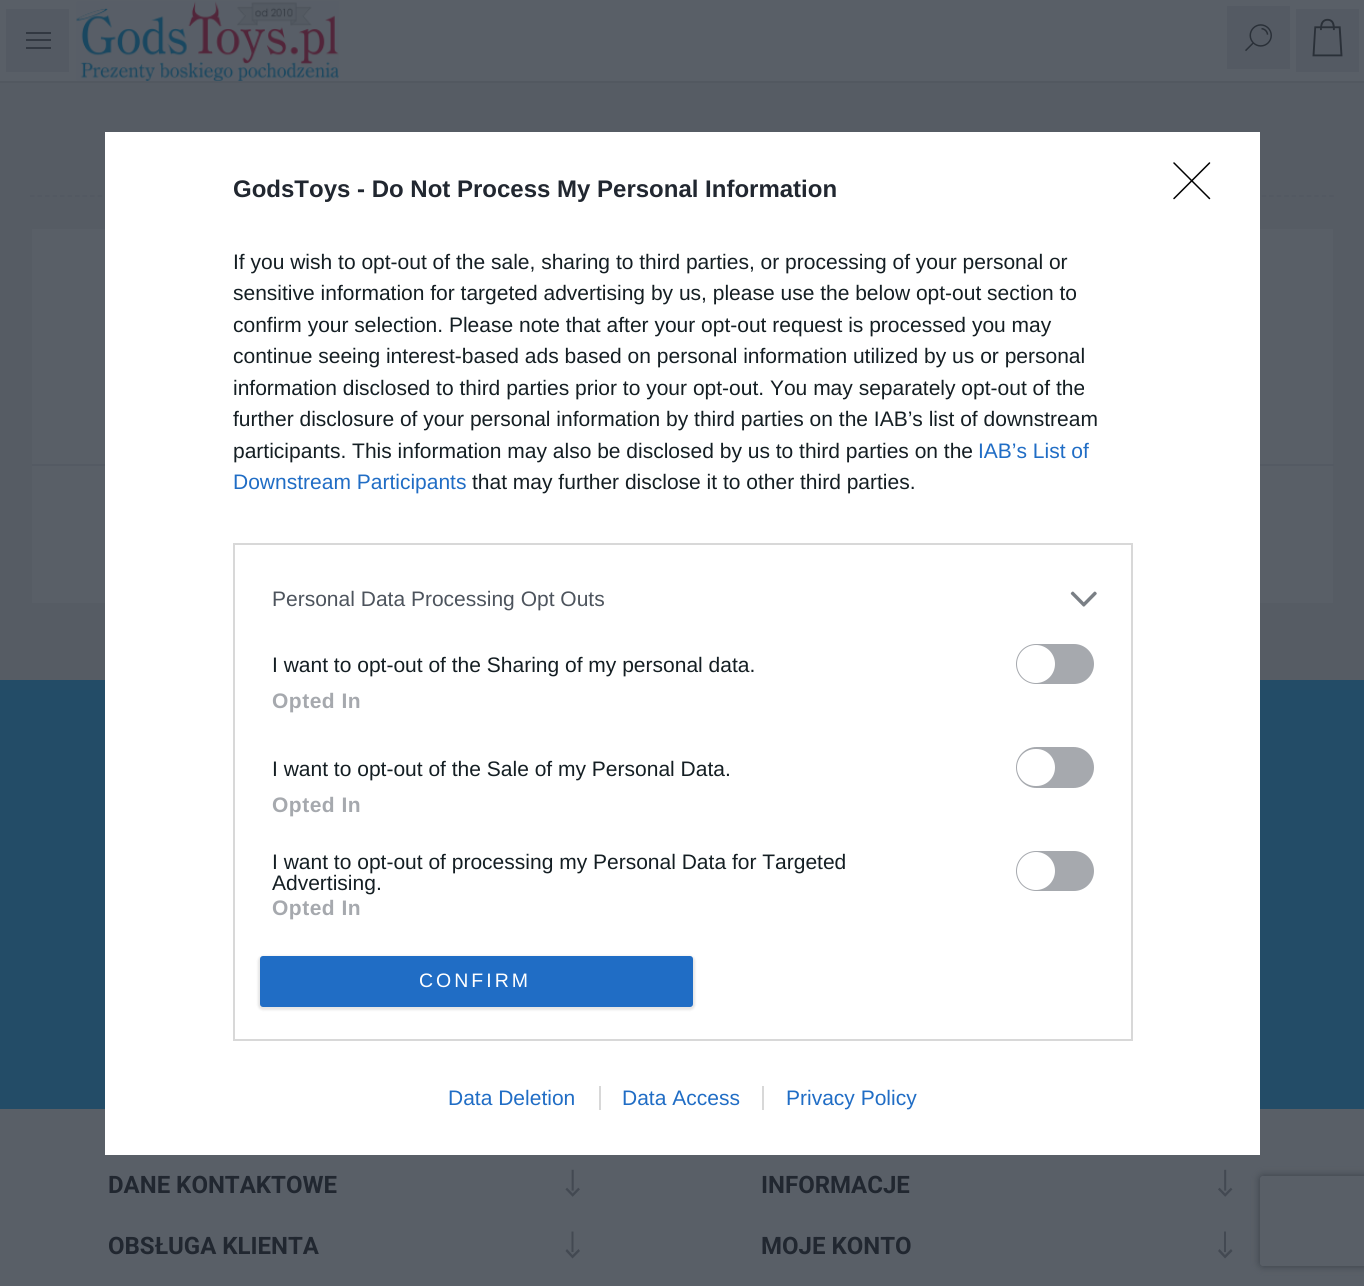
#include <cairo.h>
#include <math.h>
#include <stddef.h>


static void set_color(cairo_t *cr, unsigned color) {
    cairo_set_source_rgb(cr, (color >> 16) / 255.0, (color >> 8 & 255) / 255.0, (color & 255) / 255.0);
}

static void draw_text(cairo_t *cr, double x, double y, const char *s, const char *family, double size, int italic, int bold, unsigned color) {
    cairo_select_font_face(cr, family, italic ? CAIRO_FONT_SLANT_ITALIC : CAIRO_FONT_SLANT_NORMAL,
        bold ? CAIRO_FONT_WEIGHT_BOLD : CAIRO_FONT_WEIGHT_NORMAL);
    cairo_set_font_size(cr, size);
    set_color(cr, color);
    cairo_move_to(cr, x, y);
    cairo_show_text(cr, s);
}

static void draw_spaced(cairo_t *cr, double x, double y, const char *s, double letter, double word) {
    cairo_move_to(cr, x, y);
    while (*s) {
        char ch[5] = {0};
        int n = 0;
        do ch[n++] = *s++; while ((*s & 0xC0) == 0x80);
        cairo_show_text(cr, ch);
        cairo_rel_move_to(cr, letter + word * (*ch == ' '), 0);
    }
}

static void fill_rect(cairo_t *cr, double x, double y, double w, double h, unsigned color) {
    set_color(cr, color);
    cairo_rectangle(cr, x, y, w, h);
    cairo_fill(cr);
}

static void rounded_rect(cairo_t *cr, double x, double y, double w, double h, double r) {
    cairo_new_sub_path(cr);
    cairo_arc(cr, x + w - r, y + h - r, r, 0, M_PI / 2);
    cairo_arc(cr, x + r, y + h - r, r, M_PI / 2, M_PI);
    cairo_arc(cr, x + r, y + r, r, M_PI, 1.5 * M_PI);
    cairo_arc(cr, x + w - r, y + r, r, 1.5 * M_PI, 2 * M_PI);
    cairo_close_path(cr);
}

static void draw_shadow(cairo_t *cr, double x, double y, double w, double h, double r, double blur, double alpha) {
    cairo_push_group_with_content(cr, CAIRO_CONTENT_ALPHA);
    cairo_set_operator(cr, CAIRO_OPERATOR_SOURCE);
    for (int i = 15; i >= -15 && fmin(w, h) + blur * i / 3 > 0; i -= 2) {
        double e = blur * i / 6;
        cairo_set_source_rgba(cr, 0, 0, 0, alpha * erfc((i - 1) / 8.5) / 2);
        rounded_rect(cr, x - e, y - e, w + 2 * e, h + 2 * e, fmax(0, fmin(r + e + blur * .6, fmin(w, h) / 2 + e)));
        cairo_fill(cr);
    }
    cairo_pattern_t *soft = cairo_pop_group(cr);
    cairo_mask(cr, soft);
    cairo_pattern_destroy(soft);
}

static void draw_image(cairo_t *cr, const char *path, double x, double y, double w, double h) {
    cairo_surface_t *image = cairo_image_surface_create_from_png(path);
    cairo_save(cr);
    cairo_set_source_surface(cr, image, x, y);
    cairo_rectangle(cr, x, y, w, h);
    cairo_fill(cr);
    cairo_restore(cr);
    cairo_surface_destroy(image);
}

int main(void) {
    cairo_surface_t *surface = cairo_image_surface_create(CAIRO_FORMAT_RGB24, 1364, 1286);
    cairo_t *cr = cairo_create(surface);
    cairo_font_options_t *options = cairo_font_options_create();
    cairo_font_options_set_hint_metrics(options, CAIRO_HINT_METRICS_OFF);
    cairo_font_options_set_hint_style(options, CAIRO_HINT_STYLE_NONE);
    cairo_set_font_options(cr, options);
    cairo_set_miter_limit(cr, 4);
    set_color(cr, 0x565C64);
    cairo_paint(cr);
    cairo_new_path(cr);
    cairo_move_to(cr, 30, 196);
    cairo_line_to(cr, 1335, 196);
    set_color(cr, 0x525861);
    cairo_set_line_width(cr, 1.5);
    cairo_set_dash(cr, (double[]){4.5, 3.01}, 2, 0);
    cairo_stroke(cr);
    fill_rect(cr, 32, 229, 1301, 374, 0x595F67);
    fill_rect(cr, 32, 464, 1302, 2, 0x545A63);
    fill_rect(cr, 0, 1109, 1364, 177, 0x595F67);
    fill_rect(cr, 0, 680, 1364, 429, 0x234C67);
    fill_rect(cr, 105, 132, 1155, 1023, 0xFFFFFF);
    draw_text(cr, 233, 197, "GodsToys - Do Not Process My Personal Information", "Liberation Sans", 24, 0, 1, 0x212730);
    draw_text(cr, 233, 269, "If you wish to opt-out of the sale, sharing to third parties, or processing of your personal or", "Liberation Sans", 21, 0, 0, 0x141E23);
    draw_text(cr, 233, 300, "sensitive information for targeted advertising by us, please use the below opt-out section to", "Liberation Sans", 21, 0, 0, 0x141E23);
    draw_text(cr, 233, 332, "confirm your selection. Please note that after your opt-out request is processed you may", "Liberation Sans", 21, 0, 0, 0x141E23);
    draw_text(cr, 233, 363, "continue seeing interest-based ads based on personal information utilized by us or personal", "Liberation Sans", 21, 0, 0, 0x141E23);
    draw_text(cr, 233, 395, "information disclosed to third parties prior to your opt-out. You may separately opt-out of the", "Liberation Sans", 21, 0, 0, 0x141E23);
    draw_text(cr, 233, 426, "further disclosure of your personal information by third parties on the IAB’s list of downstream", "Liberation Sans", 21, 0, 0, 0x141E23);
    draw_text(cr, 233, 458, "participants. This information may also be disclosed by us to third parties on the", "Liberation Sans", 21, 0, 0, 0x141E23);
    draw_text(cr, 978, 458, "IAB’s List of", "Liberation Sans", 21, 0, 0, 0x206DC5);
    draw_text(cr, 233, 489, "Downstream Participants", "Liberation Sans", 21, 0, 0, 0x206DC5);
    draw_text(cr, 472, 489, "that may further disclose it to other third parties.", "Liberation Sans", 21, 0, 0, 0x141E23);
    cairo_rectangle(cr, 234, 544, 898, 496);
    set_color(cr, 0xD8D8D8);
    cairo_set_line_width(cr, 2);
    cairo_set_dash(cr, NULL, 0, 0);
    cairo_stroke(cr);
    draw_text(cr, 272, 606, "Personal Data Processing Opt Outs", "Liberation Sans", 21, 0, 0, 0x4D545D);
    draw_image(cr, "assets/img1.png", 1070, 591, 27, 16);
    draw_text(cr, 272, 672, "I want to opt-out of the Sharing of my personal data.", "Liberation Sans", 21, 0, 0, 0x141E23);
    set_color(cr, 0xA6A9AE);
    rounded_rect(cr, 1017, 645, 76, 38, 19);
    cairo_fill_preserve(cr);
    cairo_stroke(cr);
    set_color(cr, 0xFFFFFF);
    cairo_arc(cr, 1036, 664, 19, 0, 2 * M_PI);
    cairo_fill(cr);
    cairo_select_font_face(cr, "Liberation Sans", CAIRO_FONT_SLANT_NORMAL, CAIRO_FONT_WEIGHT_BOLD);
    set_color(cr, 0xA6A9AE);
    draw_spaced(cr, 272, 708, "Opted In", 0.5, 0);
    draw_text(cr, 272, 776, "I want to opt-out of the Sale of my Personal Data.", "Liberation Sans", 21, 0, 0, 0x141E23);
    set_color(cr, 0xA6A9AE);
    rounded_rect(cr, 1017, 748, 76, 39, 19.5);
    cairo_fill_preserve(cr);
    cairo_stroke(cr);
    set_color(cr, 0xFFFFFF);
    rounded_rect(cr, 1017, 749, 38, 37, 18.5);
    cairo_fill(cr);
    cairo_select_font_face(cr, "Liberation Sans", CAIRO_FONT_SLANT_NORMAL, CAIRO_FONT_WEIGHT_BOLD);
    set_color(cr, 0xA6A9AE);
    draw_spaced(cr, 272, 812, "Opted In", 0.5, 0);
    draw_text(cr, 272, 869, "I want to opt-out of processing my Personal Data for Targeted", "Liberation Sans", 21, 0, 0, 0x141E23);
    draw_text(cr, 272, 890, "Advertising.", "Liberation Sans", 21, 0, 0, 0x141E23);
    set_color(cr, 0xA6A9AE);
    rounded_rect(cr, 1017, 852, 76, 38, 19);
    cairo_fill_preserve(cr);
    cairo_stroke(cr);
    set_color(cr, 0xFFFFFF);
    cairo_arc(cr, 1036, 871, 19, 0, 2 * M_PI);
    cairo_fill(cr);
    cairo_select_font_face(cr, "Liberation Sans", CAIRO_FONT_SLANT_NORMAL, CAIRO_FONT_WEIGHT_BOLD);
    set_color(cr, 0xA6A9AE);
    draw_spaced(cr, 272, 915, "Opted In", 0.5, 0);
    set_color(cr, 0x000000);
    draw_shadow(cr, 258, 956, 437, 54, 5, 1, 0.1);
    set_color(cr, 0x206DC5);
    rounded_rect(cr, 260, 956, 433, 51, 3);
    cairo_fill(cr);
    cairo_select_font_face(cr, "Liberation Sans", CAIRO_FONT_SLANT_NORMAL, CAIRO_FONT_WEIGHT_NORMAL);
    cairo_set_font_size(cr, 19.5);
    set_color(cr, 0xFFFFFF);
    draw_spaced(cr, 419, 987, "CONFIRM", 3, 0);
    cairo_new_path(cr);
    cairo_move_to(cr, 1174, 163);
    cairo_line_to(cr, 1209.5, 198.5);
    cairo_move_to(cr, 1209.5, 163);
    cairo_line_to(cr, 1174, 198.5);
    set_color(cr, 0x000000);
    cairo_set_line_width(cr, 1.5);
    cairo_set_line_cap(cr, CAIRO_LINE_CAP_ROUND);
    cairo_set_line_join(cr, CAIRO_LINE_JOIN_ROUND);
    cairo_stroke(cr);
    draw_text(cr, 448, 1105, "Data Deletion", "Liberation Sans", 21, 0, 0, 0x206DC5);
    draw_text(cr, 622, 1105, "Data Access", "Liberation Sans", 21, 0, 0, 0x206DC5);
    fill_rect(cr, 599, 1086, 2, 24, 0xD8D8D8);
    draw_text(cr, 786, 1105, "Privacy Policy", "Liberation Sans", 21, 0, 0, 0x206DC5);
    fill_rect(cr, 762, 1086, 2, 24, 0xD8D8D8);
    fill_rect(cr, 0, 81, 1364, 2, 0x525860);
    fill_rect(cr, 0, 0, 1364, 81, 0x595F67);
    draw_image(cr, "assets/img2.png", 76, 1, 263, 80);
    fill_rect(cr, 1227, 6, 63, 63, 0x545A63);
    draw_image(cr, "assets/img3.png", 1245, 24, 27, 28);
    fill_rect(cr, 6, 9, 63, 63, 0x545A63);
    fill_rect(cr, 26, 32, 25, 2, 0x323841);
    fill_rect(cr, 26, 39, 25, 2, 0x323841);
    fill_rect(cr, 26, 47, 25, 2, 0x323841);
    fill_rect(cr, 1296, 9, 63, 63, 0x545A63);
    draw_image(cr, "assets/img4.png", 1312, 18, 31, 39);
    draw_text(cr, 108, 1193, "DANE KONTAKTOWE", "Roboto", 24, 0, 1, 0x212730);
    draw_image(cr, "assets/img5.png", 565, 1169, 15, 28);
    draw_text(cr, 761, 1193, "INFORMACJE", "Roboto", 24, 0, 1, 0x212730);
    draw_image(cr, "assets/img6.png", 1218, 1169, 15, 28);
    draw_text(cr, 108, 1254, "OBSŁUGA KLIENTA", "Roboto", 24, 0, 1, 0x212730);
    set_color(cr, 0x434952);
    cairo_new_path(cr);
    cairo_move_to(cr, 573.5, 1252);
    cairo_line_to(cr, 571.5, 1252);
    cairo_line_to(cr, 571.5, 1231.5);
    cairo_line_to(cr, 573.5, 1231.5);
    cairo_close_path(cr);
    cairo_move_to(cr, 580, 1251);
    cairo_line_to(cr, 578.5, 1249);
    cairo_line_to(cr, 572.5, 1255);
    cairo_line_to(cr, 567, 1249);
    cairo_line_to(cr, 565.5, 1251);
    cairo_line_to(cr, 572.5, 1258.5);
    cairo_close_path(cr);
    cairo_fill(cr);
    draw_text(cr, 761, 1254, "MOJE KONTO", "Roboto", 24, 0, 1, 0x212730);
    set_color(cr, 0x434952);
    cairo_new_path(cr);
    cairo_move_to(cr, 1226, 1252);
    cairo_line_to(cr, 1224, 1252);
    cairo_line_to(cr, 1224, 1231.5);
    cairo_line_to(cr, 1226, 1231.5);
    cairo_close_path(cr);
    cairo_move_to(cr, 1232.5, 1251);
    cairo_line_to(cr, 1231, 1249);
    cairo_line_to(cr, 1225, 1255);
    cairo_line_to(cr, 1219.5, 1249);
    cairo_line_to(cr, 1218, 1251);
    cairo_line_to(cr, 1225, 1258.5);
    cairo_close_path(cr);
    cairo_fill(cr);
    cairo_save(cr);
    cairo_set_fill_rule(cr, CAIRO_FILL_RULE_EVEN_ODD);
    cairo_new_path(cr);
    cairo_move_to(cr, 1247, 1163);
    cairo_line_to(cr, 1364, 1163);
    cairo_line_to(cr, 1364, 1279);
    cairo_line_to(cr, 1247, 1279);
    cairo_close_path(cr);
    cairo_move_to(cr, 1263, 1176);
    cairo_line_to(cr, 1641, 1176);
    cairo_curve_to(cr, 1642.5, 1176, 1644, 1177.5, 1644, 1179);
    cairo_line_to(cr, 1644, 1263);
    cairo_curve_to(cr, 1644, 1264.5, 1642.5, 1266, 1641, 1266);
    cairo_line_to(cr, 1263, 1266);
    cairo_curve_to(cr, 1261.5, 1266, 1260, 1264.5, 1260, 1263);
    cairo_line_to(cr, 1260, 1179);
    cairo_curve_to(cr, 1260, 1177.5, 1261.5, 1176, 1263, 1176);
    cairo_close_path(cr);
    cairo_clip(cr);
    set_color(cr, 0x393F47);
    draw_shadow(cr, 1260, 1176, 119, 90, 3, 4, 1);
    cairo_restore(cr);
    cairo_surface_write_to_png(surface, "output.png");
    cairo_font_options_destroy(options);
    cairo_destroy(cr);
    cairo_surface_destroy(surface);
    return 0;
}
